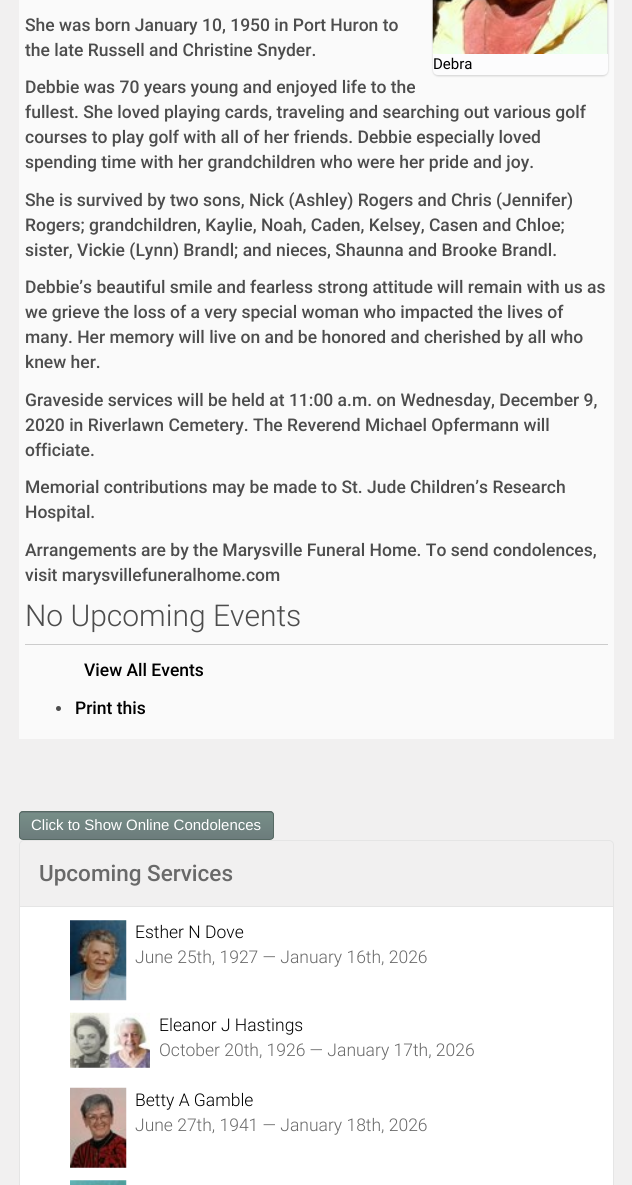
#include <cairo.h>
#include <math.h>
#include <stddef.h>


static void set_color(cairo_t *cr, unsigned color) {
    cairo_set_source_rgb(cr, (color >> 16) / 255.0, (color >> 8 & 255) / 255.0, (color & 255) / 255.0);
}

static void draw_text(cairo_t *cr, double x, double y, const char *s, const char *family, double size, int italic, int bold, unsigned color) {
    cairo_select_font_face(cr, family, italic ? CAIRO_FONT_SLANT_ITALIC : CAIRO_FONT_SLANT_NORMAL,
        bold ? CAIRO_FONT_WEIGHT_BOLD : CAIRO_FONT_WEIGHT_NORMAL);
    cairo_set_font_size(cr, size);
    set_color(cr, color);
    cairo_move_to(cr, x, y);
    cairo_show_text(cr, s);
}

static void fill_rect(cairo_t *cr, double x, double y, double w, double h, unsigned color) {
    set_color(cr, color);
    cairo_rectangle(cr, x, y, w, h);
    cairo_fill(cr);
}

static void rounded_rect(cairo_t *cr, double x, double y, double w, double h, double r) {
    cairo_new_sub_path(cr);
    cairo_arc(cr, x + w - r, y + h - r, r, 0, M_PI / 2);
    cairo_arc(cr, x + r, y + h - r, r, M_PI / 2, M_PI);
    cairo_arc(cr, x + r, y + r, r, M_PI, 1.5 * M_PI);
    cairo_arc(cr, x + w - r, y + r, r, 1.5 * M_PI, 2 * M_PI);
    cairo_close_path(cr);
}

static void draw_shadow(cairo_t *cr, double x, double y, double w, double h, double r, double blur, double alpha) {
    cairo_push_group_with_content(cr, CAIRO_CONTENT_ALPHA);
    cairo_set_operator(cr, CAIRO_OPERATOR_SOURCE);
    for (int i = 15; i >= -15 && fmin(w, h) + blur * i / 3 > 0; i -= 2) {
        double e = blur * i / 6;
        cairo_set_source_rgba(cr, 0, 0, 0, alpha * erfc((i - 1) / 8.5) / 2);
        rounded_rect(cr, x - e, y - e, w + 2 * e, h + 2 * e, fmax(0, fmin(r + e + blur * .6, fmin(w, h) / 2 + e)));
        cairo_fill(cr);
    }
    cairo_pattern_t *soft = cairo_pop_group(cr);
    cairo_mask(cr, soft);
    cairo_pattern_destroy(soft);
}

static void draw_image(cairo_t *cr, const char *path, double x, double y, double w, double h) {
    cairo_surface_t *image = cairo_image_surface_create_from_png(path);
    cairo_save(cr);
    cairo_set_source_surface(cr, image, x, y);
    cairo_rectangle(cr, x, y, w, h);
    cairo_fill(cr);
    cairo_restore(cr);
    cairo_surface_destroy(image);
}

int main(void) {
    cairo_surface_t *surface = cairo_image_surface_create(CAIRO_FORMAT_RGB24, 632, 1185);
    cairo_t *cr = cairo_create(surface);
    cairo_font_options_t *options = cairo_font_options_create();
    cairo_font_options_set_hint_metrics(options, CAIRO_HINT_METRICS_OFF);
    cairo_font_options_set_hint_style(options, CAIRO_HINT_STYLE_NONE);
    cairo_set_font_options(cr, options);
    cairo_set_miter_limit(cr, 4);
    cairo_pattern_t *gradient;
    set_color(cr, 0xF1F0F0);
    cairo_paint(cr);
    fill_rect(cr, 19, 0, 595, 739, 0xFAFAFA);
    draw_text(cr, 25, 31, "She was born January 10, 1950 in Port Huron to", "Roboto Medium", 17.5, 0, 0, 0x4D4D4D);
    draw_text(cr, 25, 56, "the late Russell and Christine Snyder.", "Roboto Medium", 17.5, 0, 0, 0x4D4D4D);
    draw_text(cr, 25, 93, "Debbie was 70 years young and enjoyed life to the", "Roboto Medium", 17.5, 0, 0, 0x4D4D4D);
    draw_text(cr, 25, 118, "fullest. She loved playing cards, traveling and searching out various golf", "Roboto Medium", 17.5, 0, 0, 0x4D4D4D);
    draw_text(cr, 25, 143, "courses to play golf with all of her friends. Debbie especially loved", "Roboto Medium", 17.5, 0, 0, 0x4D4D4D);
    draw_text(cr, 25, 168, "spending time with her grandchildren who were her pride and joy.", "Roboto Medium", 17.5, 0, 0, 0x4D4D4D);
    draw_text(cr, 25, 206, "She is survived by two sons, Nick (Ashley) Rogers and Chris (Jennifer)", "Roboto Medium", 17.5, 0, 0, 0x4D4D4D);
    draw_text(cr, 25, 231, "Rogers; grandchildren, Kaylie, Noah, Caden, Kelsey, Casen and Chloe;", "Roboto Medium", 17.5, 0, 0, 0x4D4D4D);
    draw_text(cr, 25, 256, "sister, Vickie (Lynn) Brandl; and nieces, Shaunna and Brooke Brandl.", "Roboto Medium", 17.5, 0, 0, 0x4D4D4D);
    draw_text(cr, 25, 293, "Debbie’s beautiful smile and fearless strong attitude will remain with us as", "Roboto Medium", 17.5, 0, 0, 0x4D4D4D);
    draw_text(cr, 25, 318, "we grieve the loss of a very special woman who impacted the lives of", "Roboto Medium", 17.5, 0, 0, 0x4D4D4D);
    draw_text(cr, 25, 343, "many. Her memory will live on and be honored and cherished by all who", "Roboto Medium", 17.5, 0, 0, 0x4D4D4D);
    draw_text(cr, 25, 368, "knew her.", "Roboto Medium", 17.5, 0, 0, 0x4D4D4D);
    draw_text(cr, 25, 406, "Graveside services will be held at 11:00 a.m. on Wednesday, December 9,", "Roboto Medium", 17.5, 0, 0, 0x4D4D4D);
    draw_text(cr, 25, 431, "2020 in Riverlawn Cemetery. The Reverend Michael Opfermann will", "Roboto Medium", 17.5, 0, 0, 0x4D4D4D);
    draw_text(cr, 25, 456, "officiate.", "Roboto Medium", 17.5, 0, 0, 0x4D4D4D);
    draw_text(cr, 25, 493, "Memorial contributions may be made to St. Jude Children’s Research", "Roboto Medium", 17.5, 0, 0, 0x4D4D4D);
    draw_text(cr, 25, 518, "Hospital.", "Roboto Medium", 17.5, 0, 0, 0x4D4D4D);
    draw_text(cr, 25, 556, "Arrangements are by the Marysville Funeral Home. To send condolences,", "Roboto Medium", 17.5, 0, 0, 0x4D4D4D);
    draw_text(cr, 25, 581, "visit marysvillefuneralhome.com", "Roboto Medium", 17.5, 0, 0, 0x4D4D4D);
    fill_rect(cr, 25, 644, 583, 1, 0xCCCCCC);
    draw_text(cr, 25, 626, "No Upcoming Events", "Roboto Light", 30, 0, 0, 0x4D4D4D);
    draw_text(cr, 84, 676, "View All Events", "Roboto Medium", 17.5, 0, 0, 0x000000);
    set_color(cr, 0x000000);
    draw_shadow(cr, 433, -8, 175, 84, 5, 1, 0.17);
    draw_image(cr, "assets/img1.png", 432, 0, 176, 54);
    set_color(cr, 0xFCFCFD);
    cairo_new_path(cr);
    cairo_move_to(cr, 433, 54);
    cairo_line_to(cr, 608, 54);
    cairo_line_to(cr, 608, 70);
    cairo_curve_to(cr, 608, 73, 606, 75, 603, 75);
    cairo_line_to(cr, 438, 75);
    cairo_curve_to(cr, 435, 75, 433, 73, 433, 70);
    cairo_close_path(cr);
    cairo_fill(cr);
    draw_text(cr, 433, 69, "Debra", "Roboto", 15, 0, 0, 0x000000);
    set_color(cr, 0x4D4D4D);
    cairo_new_path(cr);
    cairo_arc(cr, 58.5, 708.5, 2.5, 0, 2 * M_PI);
    cairo_fill(cr);
    draw_text(cr, 75, 714, "Print this", "Roboto Medium", 17.5, 0, 0, 0x000000);
    cairo_save(cr);
    rounded_rect(cr, 19, 811, 255, 29, 4);
    cairo_clip(cr);
    gradient = cairo_pattern_create_linear(146, 786, 146, 813);
    cairo_pattern_add_color_stop_rgba(gradient, 0.05, 0.463, 0.553, 0.529, 1);
    cairo_pattern_add_color_stop_rgba(gradient, 1, 0.424, 0.486, 0.486, 1);
    cairo_set_source(cr, gradient);
    cairo_pattern_destroy(gradient);
    cairo_rectangle(cr, 19, 811, 255, 2);
    cairo_fill(cr);
    gradient = cairo_pattern_create_linear(146, 813, 146, 839);
    cairo_pattern_add_color_stop_rgba(gradient, 0.05, 0.463, 0.553, 0.529, 1);
    cairo_pattern_add_color_stop_rgba(gradient, 1, 0.424, 0.486, 0.486, 1);
    cairo_set_source(cr, gradient);
    cairo_pattern_destroy(gradient);
    cairo_rectangle(cr, 19, 813, 255, 26);
    cairo_fill(cr);
    cairo_restore(cr);
    rounded_rect(cr, 19.5, 811.5, 254, 28, 3.5);
    set_color(cr, 0x566963);
    cairo_set_line_width(cr, 1);
    cairo_stroke(cr);
    draw_text(cr, 31, 830, "Click to Show Online Condolences", "Liberation Sans", 15, 0, 0, 0xFFFFFF);
    rounded_rect(cr, 19.5, 840.5, 594, 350, 4.5);
    set_color(cr, 0xE5E5E5);
    cairo_stroke(cr);
    draw_text(cr, 39, 881, "Upcoming Services", "Roboto Medium", 22.5, 0, 0, 0x696969);
    fill_rect(cr, 20, 907, 593, 278, 0xFFFFFF);
    fill_rect(cr, 20, 906, 593, 1, 0xE5E5E5);
    draw_image(cr, "assets/img2.png", 70, 920, 57, 81);
    draw_text(cr, 135, 938, "Esther N Dove", "Roboto Light", 17.5, 0, 0, 0x000000);
    draw_text(cr, 135, 963, "June 25th, 1927 — January 16th, 2026", "Roboto Light", 17.5, 0, 0, 0x696969);
    draw_image(cr, "assets/img3.png", 70, 1012, 80, 56);
    draw_text(cr, 159, 1031, "Eleanor J Hastings", "Roboto Light", 17.5, 0, 0, 0x000000);
    draw_text(cr, 159, 1056, "October 20th, 1926 — January 17th, 2026", "Roboto Light", 17.5, 0, 0, 0x696969);
    draw_image(cr, "assets/img4.png", 70, 1087, 57, 81);
    draw_text(cr, 135, 1106, "Betty A Gamble", "Roboto Light", 17.5, 0, 0, 0x000000);
    draw_text(cr, 135, 1131, "June 27th, 1941 — January 18th, 2026", "Roboto Light", 17.5, 0, 0, 0x696969);
    draw_image(cr, "assets/img5.png", 70, 1180, 57, 5);
    cairo_surface_write_to_png(surface, "output.png");
    cairo_font_options_destroy(options);
    cairo_destroy(cr);
    cairo_surface_destroy(surface);
    return 0;
}
